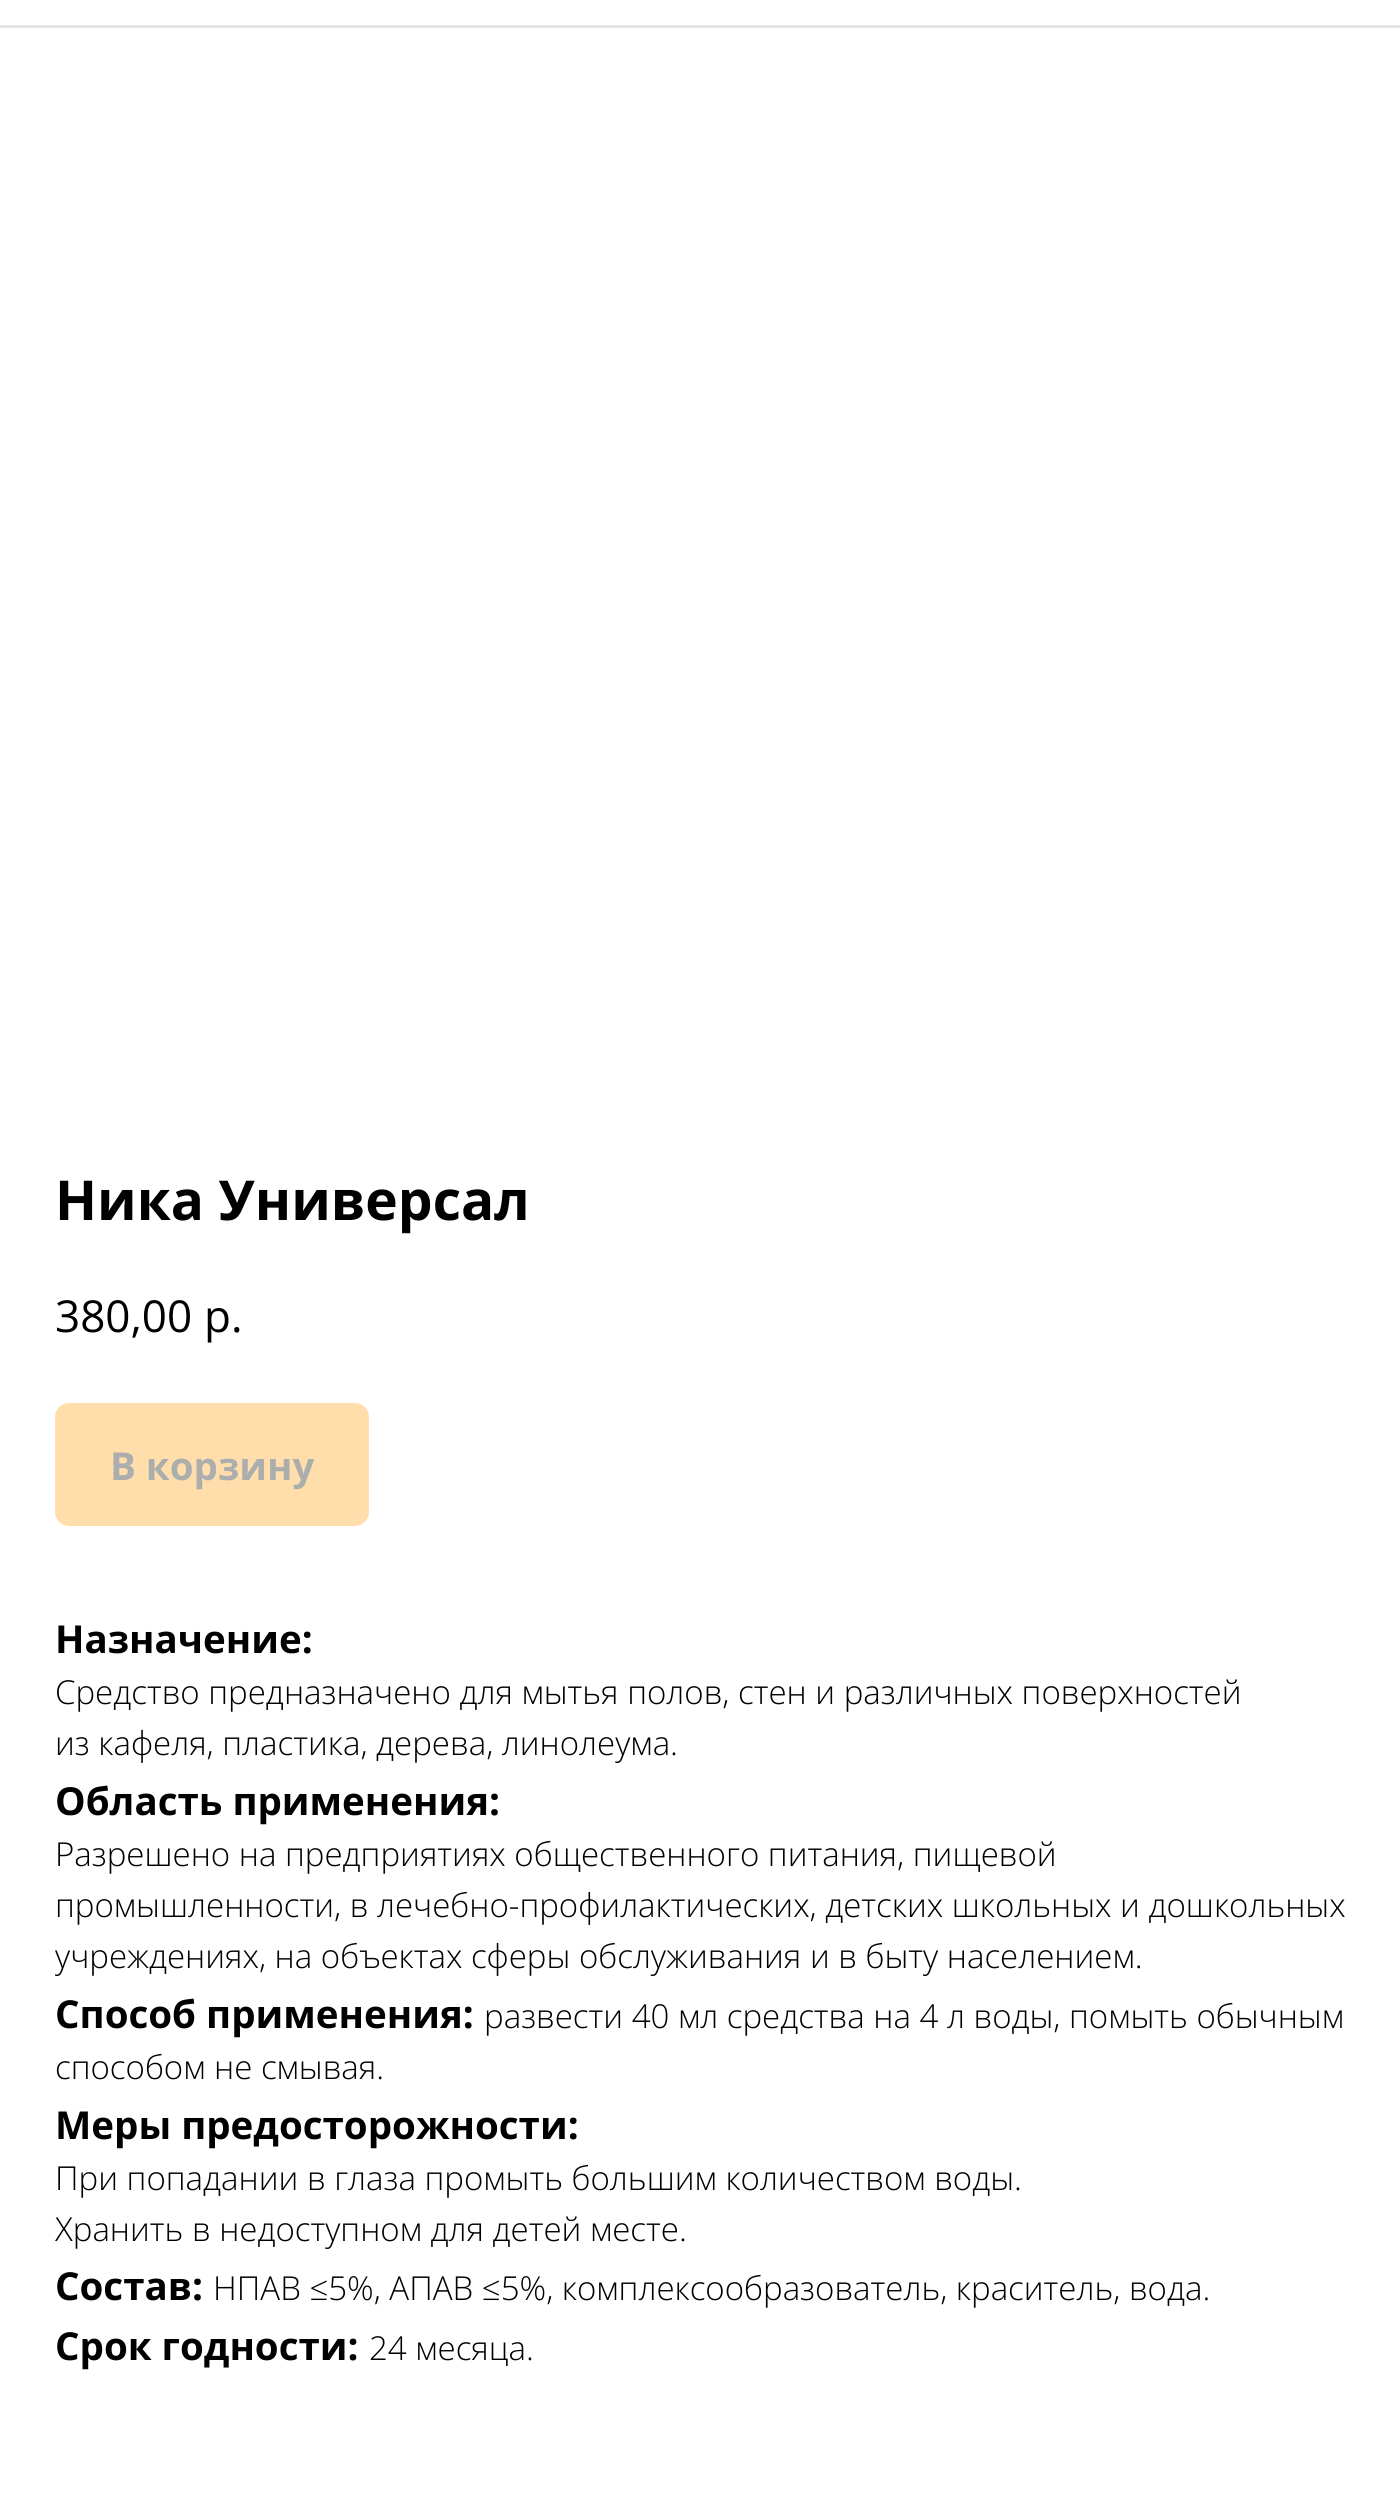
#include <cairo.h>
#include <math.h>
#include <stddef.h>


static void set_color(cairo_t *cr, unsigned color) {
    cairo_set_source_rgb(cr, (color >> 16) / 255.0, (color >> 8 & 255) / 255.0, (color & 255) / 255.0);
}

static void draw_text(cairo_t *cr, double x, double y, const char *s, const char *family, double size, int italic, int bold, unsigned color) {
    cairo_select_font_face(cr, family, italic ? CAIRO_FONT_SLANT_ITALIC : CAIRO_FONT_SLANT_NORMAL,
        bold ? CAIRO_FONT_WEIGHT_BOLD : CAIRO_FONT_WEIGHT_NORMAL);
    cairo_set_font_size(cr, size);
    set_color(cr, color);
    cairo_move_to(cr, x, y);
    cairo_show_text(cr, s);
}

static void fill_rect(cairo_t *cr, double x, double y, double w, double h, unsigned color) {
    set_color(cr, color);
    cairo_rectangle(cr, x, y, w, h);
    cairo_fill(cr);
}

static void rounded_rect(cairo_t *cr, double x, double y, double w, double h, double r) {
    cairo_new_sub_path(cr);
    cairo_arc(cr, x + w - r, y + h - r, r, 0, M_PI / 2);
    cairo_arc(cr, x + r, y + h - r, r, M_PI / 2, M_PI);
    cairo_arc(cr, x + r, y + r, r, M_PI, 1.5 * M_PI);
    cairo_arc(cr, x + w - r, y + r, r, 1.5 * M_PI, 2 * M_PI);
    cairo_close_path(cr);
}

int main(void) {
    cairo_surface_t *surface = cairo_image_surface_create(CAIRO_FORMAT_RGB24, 1400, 2506);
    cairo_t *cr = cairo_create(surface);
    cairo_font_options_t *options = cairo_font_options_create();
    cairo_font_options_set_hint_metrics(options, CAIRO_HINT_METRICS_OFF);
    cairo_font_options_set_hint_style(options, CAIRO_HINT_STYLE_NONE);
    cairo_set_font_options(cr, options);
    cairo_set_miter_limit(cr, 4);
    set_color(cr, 0xFFFFFF);
    cairo_paint(cr);
    fill_rect(cr, 0, 25, 1400, 3, 0xE6E6E6);
    draw_text(cr, 55, 1220, "Ника Универсал", "Open Sans", 55, 0, 1, 0x000000);
    draw_text(cr, 55, 1332, "380,00", "Open Sans", 44, 0, 0, 0x000000);
    draw_text(cr, 204, 1332, "р.", "Open Sans", 44, 0, 0, 0x000000);
    set_color(cr, 0xFFDEAC);
    rounded_rect(cr, 55, 1403, 314, 123, 14);
    cairo_fill(cr);
    draw_text(cr, 110, 1480, "В корзину", "Open Sans", 38.5, 0, 1, 0xACADAD);
    draw_text(cr, 55, 1653, "Назначение:", "Open Sans", 38.5, 0, 1, 0x000000);
    draw_text(cr, 55, 1704, "Средство предназначено для мытья полов, стен и различных поверхностей", "Open Sans Light", 33, 0, 0, 0x000000);
    draw_text(cr, 55, 1755, "из кафеля, пластика, дерева, линолеума.", "Open Sans Light", 33, 0, 0, 0x000000);
    draw_text(cr, 55, 1815, "Область применения:", "Open Sans", 38.5, 0, 1, 0x000000);
    draw_text(cr, 55, 1866, "Разрешено на предприятиях общественного питания, пищевой", "Open Sans Light", 33, 0, 0, 0x000000);
    draw_text(cr, 55, 1917, "промышленности, в лечебно-профилактических, детских школьных и дошкольных", "Open Sans Light", 33, 0, 0, 0x000000);
    draw_text(cr, 55, 1968, "учреждениях, на объектах сферы обслуживания и в быту населением.", "Open Sans Light", 33, 0, 0, 0x000000);
    draw_text(cr, 55, 2028, "Способ применения:", "Open Sans", 38.5, 0, 1, 0x000000);
    draw_text(cr, 484, 2028, "развести 40 мл средства на 4 л воды, помыть обычным", "Open Sans Light", 33, 0, 0, 0x000000);
    draw_text(cr, 55, 2079, "способом не смывая.", "Open Sans Light", 33, 0, 0, 0x000000);
    draw_text(cr, 55, 2139, "Меры предосторожности:", "Open Sans", 38.5, 0, 1, 0x000000);
    draw_text(cr, 55, 2190, "При попадании в глаза промыть большим количеством воды.", "Open Sans Light", 33, 0, 0, 0x000000);
    draw_text(cr, 55, 2241, "Хранить в недоступном для детей месте.", "Open Sans Light", 33, 0, 0, 0x000000);
    draw_text(cr, 55, 2300, "Состав:", "Open Sans", 38.5, 0, 1, 0x000000);
    draw_text(cr, 213, 2300, "НПАВ ≤5%, АПАВ ≤5%, комплексообразователь, краситель, вода.", "Open Sans Light", 33, 0, 0, 0x000000);
    draw_text(cr, 55, 2360, "Срок годности:", "Open Sans", 38.5, 0, 1, 0x000000);
    draw_text(cr, 369, 2360, "24 месяца.", "Open Sans Light", 33, 0, 0, 0x000000);
    cairo_surface_write_to_png(surface, "output.png");
    cairo_font_options_destroy(options);
    cairo_destroy(cr);
    cairo_surface_destroy(surface);
    return 0;
}
